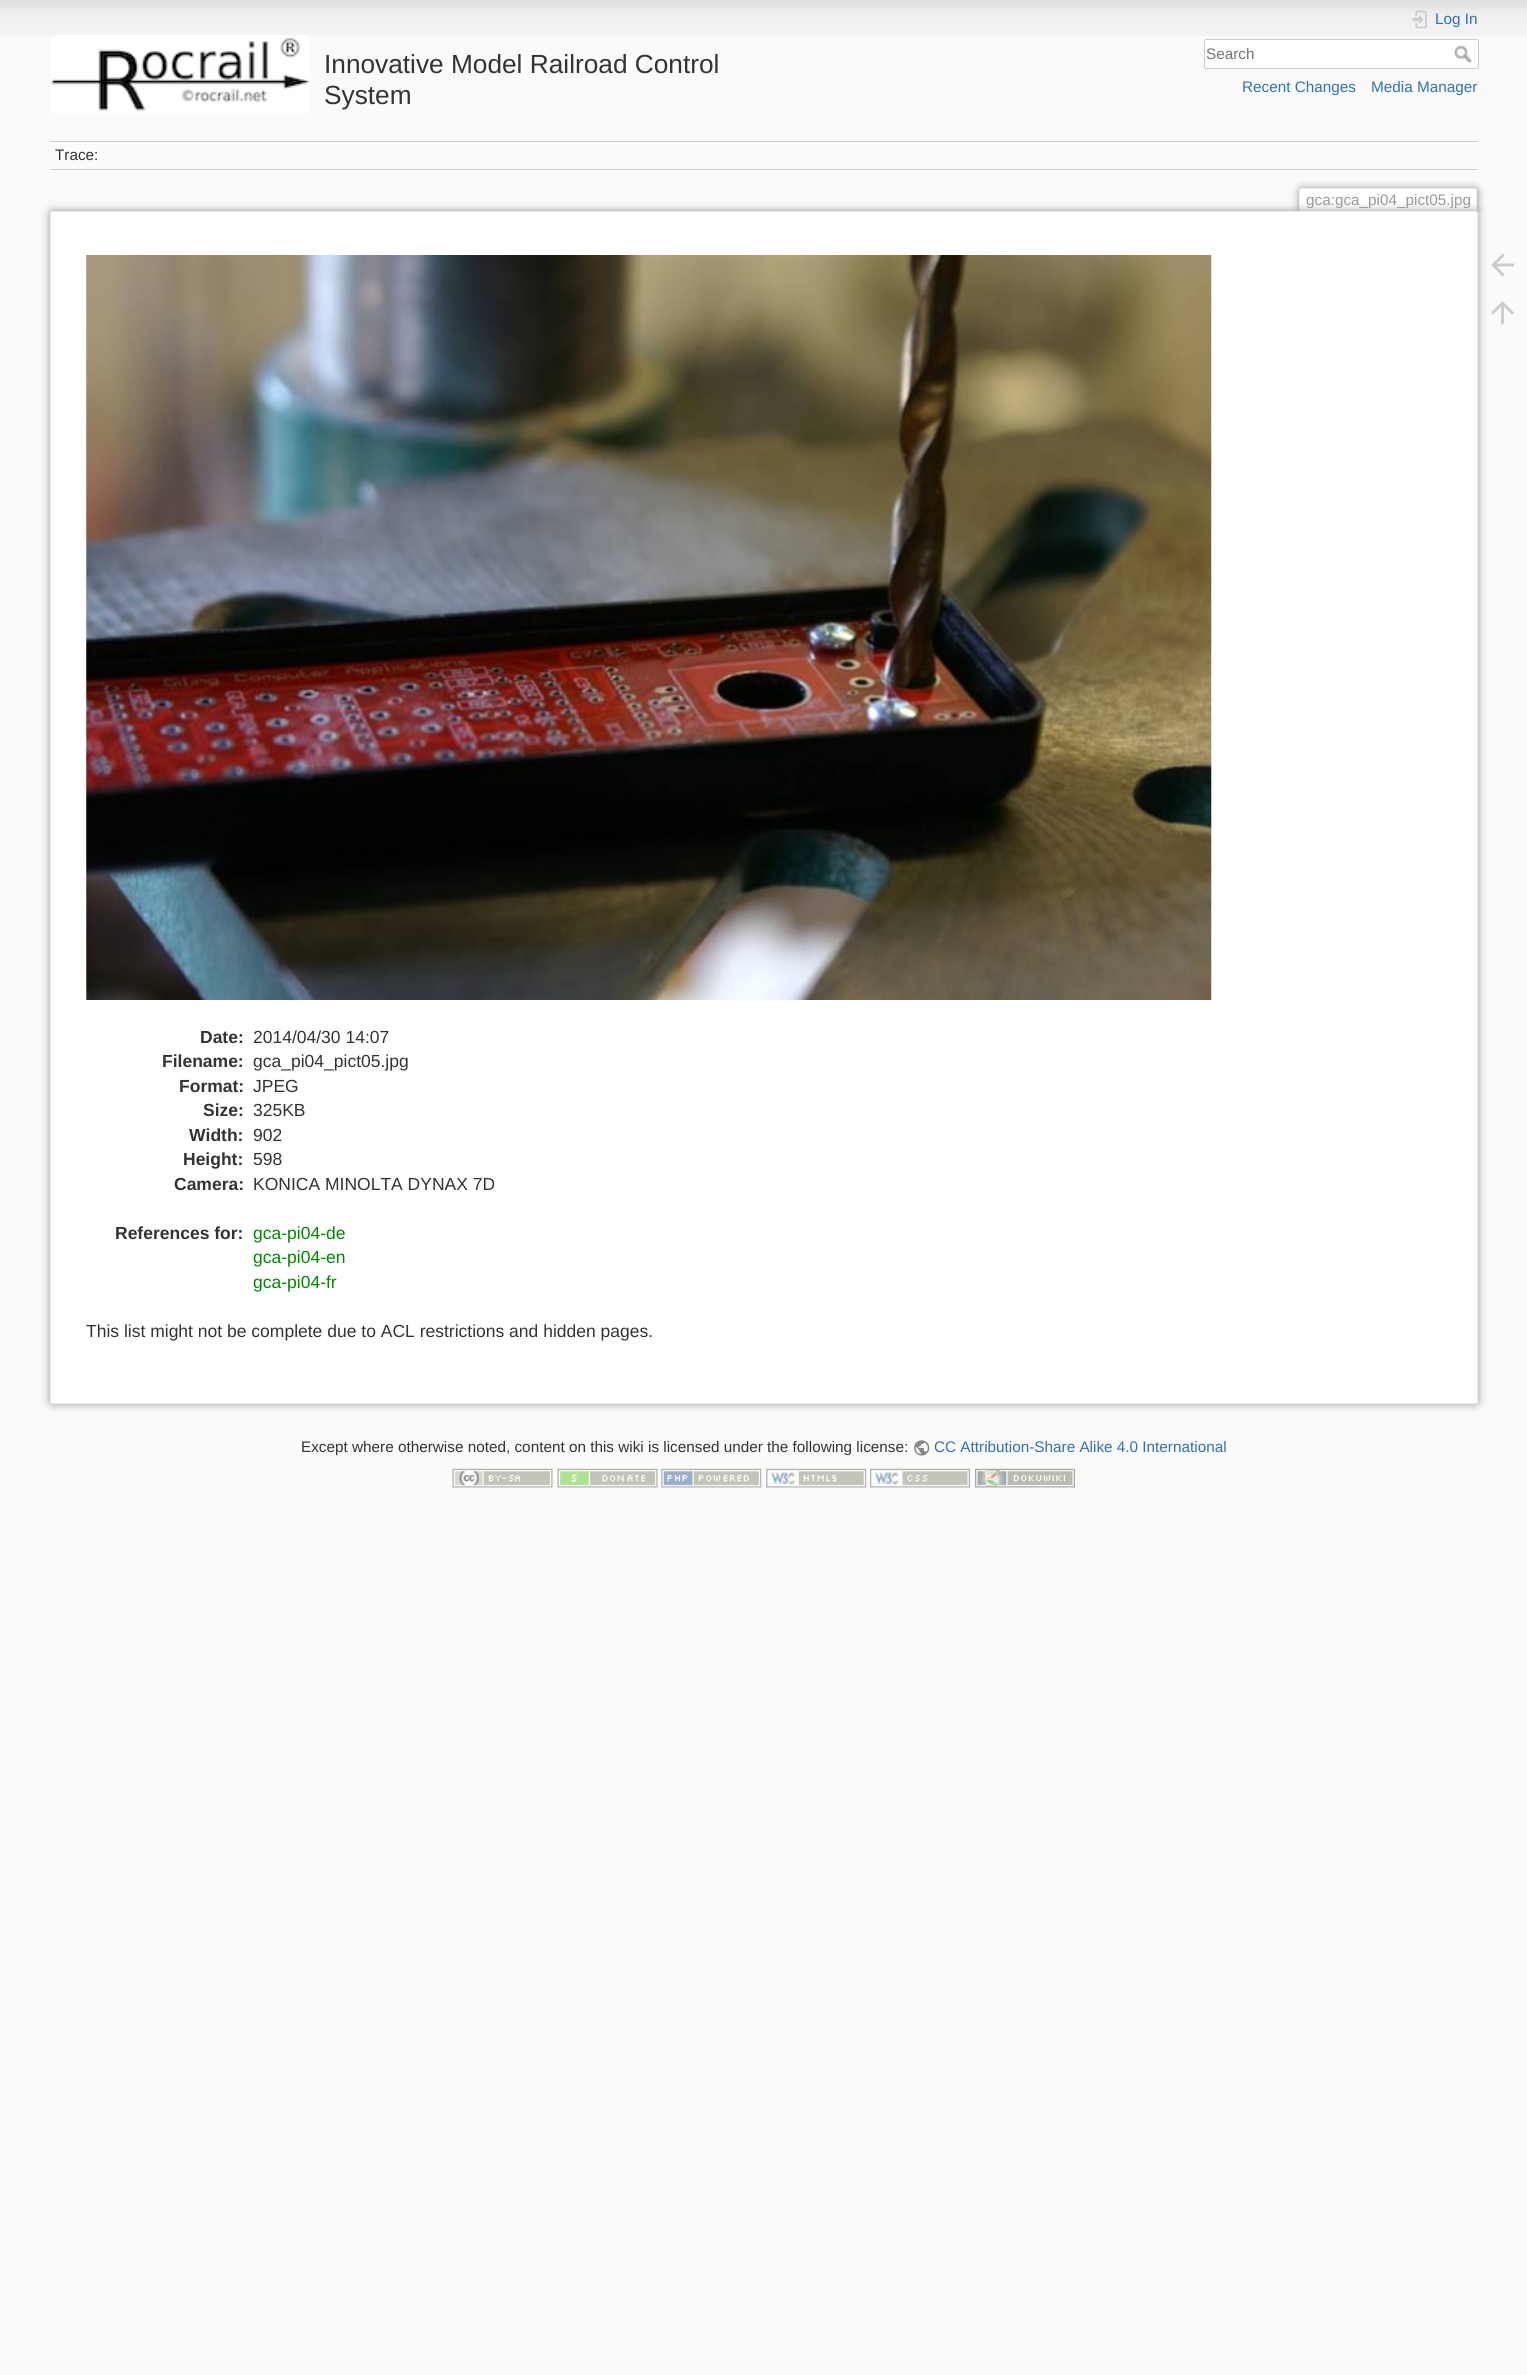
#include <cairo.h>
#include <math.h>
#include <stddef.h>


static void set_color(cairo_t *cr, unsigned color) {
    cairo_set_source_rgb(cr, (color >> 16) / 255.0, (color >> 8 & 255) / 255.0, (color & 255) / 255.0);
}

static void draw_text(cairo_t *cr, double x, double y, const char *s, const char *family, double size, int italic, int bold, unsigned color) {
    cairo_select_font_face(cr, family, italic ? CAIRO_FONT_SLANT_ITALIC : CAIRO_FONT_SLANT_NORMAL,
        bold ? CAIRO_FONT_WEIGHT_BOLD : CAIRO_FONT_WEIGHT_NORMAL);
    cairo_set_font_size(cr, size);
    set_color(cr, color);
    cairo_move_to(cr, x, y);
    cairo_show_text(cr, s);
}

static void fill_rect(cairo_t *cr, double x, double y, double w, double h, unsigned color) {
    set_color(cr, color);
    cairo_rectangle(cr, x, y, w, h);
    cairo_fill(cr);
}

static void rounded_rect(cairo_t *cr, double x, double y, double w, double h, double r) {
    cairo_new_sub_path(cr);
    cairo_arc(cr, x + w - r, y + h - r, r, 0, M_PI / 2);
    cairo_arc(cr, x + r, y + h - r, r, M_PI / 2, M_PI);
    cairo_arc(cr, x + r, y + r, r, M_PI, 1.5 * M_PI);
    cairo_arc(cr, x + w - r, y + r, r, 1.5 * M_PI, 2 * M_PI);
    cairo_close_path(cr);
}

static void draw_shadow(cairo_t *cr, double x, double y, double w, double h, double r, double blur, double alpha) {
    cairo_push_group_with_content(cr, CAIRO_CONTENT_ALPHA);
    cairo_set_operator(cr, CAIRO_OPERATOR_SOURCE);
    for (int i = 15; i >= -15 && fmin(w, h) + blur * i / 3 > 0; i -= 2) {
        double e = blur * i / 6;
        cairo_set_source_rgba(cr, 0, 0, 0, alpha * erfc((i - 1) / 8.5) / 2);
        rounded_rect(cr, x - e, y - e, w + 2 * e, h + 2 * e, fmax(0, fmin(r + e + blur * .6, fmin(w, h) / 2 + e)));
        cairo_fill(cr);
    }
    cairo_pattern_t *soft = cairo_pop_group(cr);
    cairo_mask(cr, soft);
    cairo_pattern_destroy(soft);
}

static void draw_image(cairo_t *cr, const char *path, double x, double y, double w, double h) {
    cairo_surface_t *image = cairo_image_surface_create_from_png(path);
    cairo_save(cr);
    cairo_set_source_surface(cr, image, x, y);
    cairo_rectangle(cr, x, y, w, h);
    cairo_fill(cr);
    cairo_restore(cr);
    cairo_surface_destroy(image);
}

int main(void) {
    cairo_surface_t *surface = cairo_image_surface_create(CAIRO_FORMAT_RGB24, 1527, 2375);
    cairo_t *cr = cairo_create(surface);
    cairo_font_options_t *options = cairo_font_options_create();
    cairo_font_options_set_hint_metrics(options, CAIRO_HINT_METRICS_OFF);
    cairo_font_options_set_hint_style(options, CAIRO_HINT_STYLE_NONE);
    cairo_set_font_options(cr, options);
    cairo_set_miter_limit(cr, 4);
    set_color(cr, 0xFBFAF9);
    cairo_paint(cr);
    draw_image(cr, "assets/img1.png", 0, 0, 1527, 36);
    draw_image(cr, "assets/img2.png", 50, 35, 261, 80);
    draw_text(cr, 324, 73, "Innovative Model Railroad Control", "Liberation Sans", 26.25, 0, 0, 0x333333);
    draw_text(cr, 324, 104, "System", "Liberation Sans", 26.25, 0, 0, 0x333333);
    draw_image(cr, "assets/img3.png", 1412, 10, 15, 19);
    draw_text(cr, 1435, 24, "Log In", "Liberation Sans", 15.3, 0, 0, 0x2B73B7);
    set_color(cr, 0xFFFFFF);
    rounded_rect(cr, 1204.5, 39.5, 274, 29, 2);
    cairo_fill_preserve(cr);
    set_color(cr, 0xCCCCCC);
    cairo_set_line_width(cr, 1);
    cairo_stroke(cr);
    draw_text(cr, 1206, 59, "Search", "Liberation Sans", 15.3, 0, 0, 0x757575);
    draw_image(cr, "assets/img4.png", 1454, 45, 18, 18);
    draw_text(cr, 1242, 92, "Recent Changes", "Liberation Sans", 15.3, 0, 0, 0x2B73B7);
    draw_text(cr, 1371, 92, "Media Manager", "Liberation Sans", 15.3, 0, 0, 0x2B73B7);
    fill_rect(cr, 50, 141, 1428, 1, 0xCCCCCC);
    fill_rect(cr, 50, 170, 1428, 1, 0xFFFFFF);
    fill_rect(cr, 50, 143, 1428, 1, 0xFFFFFF);
    fill_rect(cr, 50, 169, 1428, 1, 0xCCCCCC);
    draw_text(cr, 55, 160, "Trace:", "Liberation Sans", 15.3, 0, 0, 0x333333);
    cairo_save(cr);
    cairo_rectangle(cr, 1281, 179, 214, 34);
    cairo_clip(cr);
    set_color(cr, 0x999999);
    draw_shadow(cr, 1299, 188, 179, 25, 2.5, 4, 1);
    cairo_restore(cr);
    set_color(cr, 0xFFFFFF);
    cairo_new_path(cr);
    cairo_move_to(cr, 1301, 189);
    cairo_line_to(cr, 1475, 189);
    cairo_curve_to(cr, 1475.5, 189, 1476, 189.5, 1476, 190);
    cairo_line_to(cr, 1476, 213);
    cairo_line_to(cr, 1300, 213);
    cairo_line_to(cr, 1300, 190);
    cairo_curve_to(cr, 1300, 189.5, 1300.5, 189, 1301, 189);
    cairo_close_path(cr);
    cairo_fill(cr);
    fill_rect(cr, 1300, 188, 176, 1, 0xEEEEEE);
    fill_rect(cr, 1476, 189, 1, 24, 0xEEEEEE);
    fill_rect(cr, 1299, 189, 1, 24, 0xEEEEEE);
    draw_text(cr, 1306, 205, "gca:gca_pi04_pict05.jpg", "Liberation Sans", 15.3, 0, 0, 0x999999);
    set_color(cr, 0x999999);
    draw_shadow(cr, 50, 211, 1428, 1193, 2.5, 4.5, 1);
    set_color(cr, 0xFFFFFF);
    rounded_rect(cr, 50.5, 211.5, 1427, 1192, 2);
    cairo_fill_preserve(cr);
    set_color(cr, 0xEEEEEE);
    cairo_stroke(cr);
    draw_image(cr, "assets/img5.png", 86, 255, 1126, 745);
    draw_text(cr, 200, 1043, "Date:", "Liberation Sans", 17.5, 0, 1, 0x333333);
    draw_text(cr, 253, 1043, "2014/04/30 14:07", "Liberation Sans", 17.5, 0, 0, 0x333333);
    draw_text(cr, 162, 1067, "Filename:", "Liberation Sans", 17.5, 0, 1, 0x333333);
    draw_text(cr, 253, 1067, "gca_pi04_pict05.jpg", "Liberation Sans", 17.5, 0, 0, 0x333333);
    draw_text(cr, 179, 1092, "Format:", "Liberation Sans", 17.5, 0, 1, 0x333333);
    draw_text(cr, 253, 1092, "JPEG", "Liberation Sans", 17.5, 0, 0, 0x333333);
    draw_text(cr, 203, 1116, "Size:", "Liberation Sans", 17.5, 0, 1, 0x333333);
    draw_text(cr, 253, 1116, "325KB", "Liberation Sans", 17.5, 0, 0, 0x333333);
    draw_text(cr, 189, 1141, "Width:", "Liberation Sans", 17.5, 0, 1, 0x333333);
    draw_text(cr, 253, 1141, "902", "Liberation Sans", 17.5, 0, 0, 0x333333);
    draw_text(cr, 183, 1165, "Height:", "Liberation Sans", 17.5, 0, 1, 0x333333);
    draw_text(cr, 253, 1165, "598", "Liberation Sans", 17.5, 0, 0, 0x333333);
    draw_text(cr, 174, 1190, "Camera:", "Liberation Sans", 17.5, 0, 1, 0x333333);
    draw_text(cr, 253, 1190, "KONICA MINOLTA DYNAX 7D", "Liberation Sans", 17.5, 0, 0, 0x333333);
    draw_text(cr, 115, 1239, "References for:", "Liberation Sans", 17.5, 0, 1, 0x333333);
    draw_text(cr, 253, 1239, "gca-pi04-de", "Liberation Sans", 17.5, 0, 0, 0x008800);
    draw_text(cr, 253, 1263, "gca-pi04-en", "Liberation Sans", 17.5, 0, 0, 0x008800);
    draw_text(cr, 253, 1288, "gca-pi04-fr", "Liberation Sans", 17.5, 0, 0, 0x008800);
    draw_text(cr, 86, 1337, "This list might not be complete due to ACL restrictions and hidden pages.", "Liberation Sans", 17.5, 0, 0, 0x333333);
    draw_image(cr, "assets/img6.png", 1491, 253, 24, 24);
    draw_image(cr, "assets/img7.png", 1491, 301, 23, 24);
    draw_text(cr, 301, 1452, "Except where otherwise noted, content on this wiki is licensed under the following license:", "Liberation Sans", 15.3, 0, 0, 0x333333);
    draw_image(cr, "assets/img8.png", 914, 1440, 16, 16);
    draw_text(cr, 934, 1452, "CC Attribution-Share Alike 4.0 International", "Liberation Sans", 15.3, 0, 0, 0x2B73B7);
    draw_image(cr, "assets/img9.png", 452, 1468, 101, 20);
    draw_image(cr, "assets/img10.png", 557, 1468, 101, 20);
    draw_image(cr, "assets/img11.png", 661, 1468, 101, 20);
    draw_image(cr, "assets/img12.png", 766, 1468, 101, 20);
    draw_image(cr, "assets/img13.png", 870, 1468, 100, 20);
    draw_image(cr, "assets/img14.png", 975, 1468, 100, 20);
    cairo_surface_write_to_png(surface, "output.png");
    cairo_font_options_destroy(options);
    cairo_destroy(cr);
    cairo_surface_destroy(surface);
    return 0;
}
